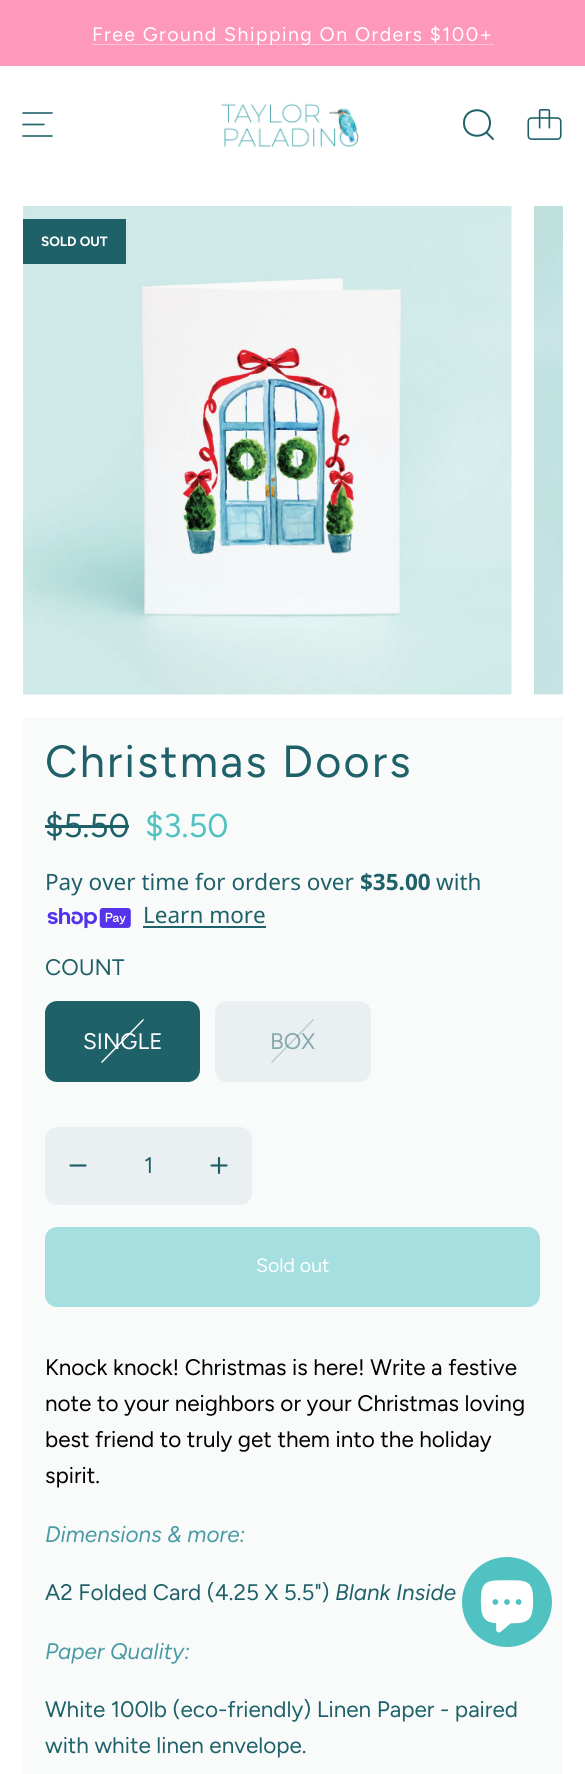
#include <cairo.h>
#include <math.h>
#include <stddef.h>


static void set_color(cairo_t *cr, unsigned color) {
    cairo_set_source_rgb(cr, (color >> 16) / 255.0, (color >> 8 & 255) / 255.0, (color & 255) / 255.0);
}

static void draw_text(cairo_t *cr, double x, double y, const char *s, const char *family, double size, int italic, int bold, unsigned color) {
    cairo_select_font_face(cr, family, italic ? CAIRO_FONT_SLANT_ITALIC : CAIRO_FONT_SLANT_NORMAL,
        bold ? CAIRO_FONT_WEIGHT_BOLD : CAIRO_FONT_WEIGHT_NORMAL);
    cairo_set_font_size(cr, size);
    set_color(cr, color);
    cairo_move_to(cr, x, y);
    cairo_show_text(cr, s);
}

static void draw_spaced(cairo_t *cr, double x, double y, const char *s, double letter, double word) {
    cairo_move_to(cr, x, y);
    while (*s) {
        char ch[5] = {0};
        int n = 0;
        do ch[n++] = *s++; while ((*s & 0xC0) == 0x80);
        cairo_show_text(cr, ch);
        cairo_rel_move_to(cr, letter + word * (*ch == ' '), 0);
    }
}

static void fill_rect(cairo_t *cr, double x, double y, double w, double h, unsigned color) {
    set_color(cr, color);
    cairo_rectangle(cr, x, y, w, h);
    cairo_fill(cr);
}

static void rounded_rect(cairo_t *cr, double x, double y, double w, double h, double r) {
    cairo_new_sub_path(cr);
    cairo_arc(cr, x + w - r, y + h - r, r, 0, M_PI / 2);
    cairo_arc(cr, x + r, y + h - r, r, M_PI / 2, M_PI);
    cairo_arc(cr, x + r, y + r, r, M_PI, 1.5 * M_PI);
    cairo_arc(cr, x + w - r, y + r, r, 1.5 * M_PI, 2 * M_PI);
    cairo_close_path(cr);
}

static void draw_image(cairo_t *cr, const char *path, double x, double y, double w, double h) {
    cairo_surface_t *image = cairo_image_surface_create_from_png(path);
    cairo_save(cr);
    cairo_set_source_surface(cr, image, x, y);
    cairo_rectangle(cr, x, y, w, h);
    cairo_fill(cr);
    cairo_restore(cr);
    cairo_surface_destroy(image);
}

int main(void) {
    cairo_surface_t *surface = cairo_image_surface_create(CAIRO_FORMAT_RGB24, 585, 1774);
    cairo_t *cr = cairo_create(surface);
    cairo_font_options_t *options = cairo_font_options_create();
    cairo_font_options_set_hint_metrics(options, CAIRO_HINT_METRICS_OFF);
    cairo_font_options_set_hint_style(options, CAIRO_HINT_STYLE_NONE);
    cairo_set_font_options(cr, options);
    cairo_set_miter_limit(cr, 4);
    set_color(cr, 0xFFFFFF);
    cairo_paint(cr);
    fill_rect(cr, 0, 0, 585, 66, 0xFF99BB);
    fill_rect(cr, 92, 44, 402, 1, 0xFFC2D6);
    cairo_select_font_face(cr, "Figtree", CAIRO_FONT_SLANT_NORMAL, CAIRO_FONT_WEIGHT_NORMAL);
    cairo_set_font_size(cr, 19.5);
    set_color(cr, 0xFFFFFF);
    draw_spaced(cr, 92, 41, "Free Ground Shipping On Orders $100+", 1.5, 0);
    cairo_new_path(cr);
    cairo_move_to(cr, 23, 113);
    cairo_line_to(cr, 52, 113);
    cairo_move_to(cr, 23, 124.5);
    cairo_line_to(cr, 44, 124.5);
    cairo_move_to(cr, 23, 136);
    cairo_line_to(cr, 52, 136);
    set_color(cr, 0x1F6169);
    cairo_set_line_width(cr, 1.6);
    cairo_set_line_cap(cr, CAIRO_LINE_CAP_ROUND);
    cairo_set_line_join(cr, CAIRO_LINE_JOIN_ROUND);
    cairo_stroke(cr);
    draw_image(cr, "assets/img1.png", 221, 103, 138, 45);
    cairo_new_path(cr);
    cairo_move_to(cr, 486.5, 132.5);
    cairo_line_to(cr, 493, 139);
    cairo_move_to(cr, 464, 123);
    cairo_curve_to(cr, 464, 140, 490, 140, 490, 123);
    cairo_curve_to(cr, 490, 106, 464, 106, 464, 123);
    cairo_close_path(cr);
    cairo_set_line_width(cr, 2);
    cairo_stroke(cr);
    draw_image(cr, "assets/img2.png", 527, 109, 35, 31);
    draw_image(cr, "assets/img3.png", 23, 206, 489, 489);
    draw_image(cr, "assets/img4.png", 534, 206, 29, 489);
    fill_rect(cr, 23, 219, 103, 45, 0x1F6169);
    draw_text(cr, 41, 246, "SOLD OUT", "Figtree", 13.5, 0, 1, 0xFFFFFF);
    fill_rect(cr, 23, 717, 540, 1057, 0xF9FBFB);
    cairo_select_font_face(cr, "Figtree", CAIRO_FONT_SLANT_NORMAL, CAIRO_FONT_WEIGHT_NORMAL);
    cairo_set_font_size(cr, 45);
    set_color(cr, 0x1F6169);
    draw_spaced(cr, 45, 777, "Christmas Doors", 2.25, 0);
    draw_text(cr, 45, 837, "$5.50", "Figtree", 33, 0, 0, 0x1F6169);
    fill_rect(cr, 45, 825, 84, 3, 0x1F6169);
    draw_text(cr, 145, 837, "$3.50", "Figtree", 33, 0, 0, 0x51C2C2);
    draw_text(cr, 45, 890, "Pay over time for orders over", "Noto Sans", 22.5, 0, 0, 0x1F6169);
    draw_text(cr, 360, 890, "$35.00", "Noto Sans", 22.5, 0, 1, 0x1F6169);
    draw_text(cr, 436, 890, "with", "Noto Sans", 22.5, 0, 0, 0x1F6169);
    draw_image(cr, "assets/img5.png", 47, 908, 84, 21);
    draw_text(cr, 143, 923, "Learn more", "Noto Sans", 22.5, 0, 0, 0x1F6169);
    fill_rect(cr, 143, 926, 123, 2, 0x1F6169);
    draw_text(cr, 45, 975, "COUNT", "Figtree", 22.5, 0, 0, 0x1F6169);
    rounded_rect(cr, 45, 1001, 155, 81, 12);
    cairo_fill(cr);
    set_color(cr, 0xFFFFFF);
    cairo_new_path(cr);
    cairo_move_to(cr, 101, 1062);
    cairo_line_to(cr, 143, 1019);
    cairo_line_to(cr, 144, 1020);
    cairo_line_to(cr, 102, 1063);
    cairo_close_path(cr);
    cairo_fill(cr);
    draw_text(cr, 83, 1049, "SINGLE", "Figtree", 22.5, 0, 0, 0xFFFFFF);
    set_color(cr, 0xEAF0F1);
    rounded_rect(cr, 215, 1001, 156, 81, 12);
    cairo_fill(cr);
    draw_text(cr, 270, 1049, "BOX", "Figtree", 22.5, 0, 0, 0x85A9AD);
    cairo_set_source_rgba(cr, 0.122, 0.38, 0.412, 0.25);
    cairo_new_path(cr);
    cairo_move_to(cr, 271, 1062);
    cairo_line_to(cr, 313, 1019);
    cairo_line_to(cr, 314, 1020);
    cairo_line_to(cr, 272, 1063);
    cairo_close_path(cr);
    cairo_fill(cr);
    cairo_new_path(cr);
    cairo_move_to(cr, 70.5, 1165.5);
    cairo_line_to(cr, 85.5, 1165.5);
    set_color(cr, 0x1F6169);
    cairo_set_line_width(cr, 2.2);
    cairo_stroke(cr);
    cairo_new_path(cr);
    cairo_move_to(cr, 211.5, 1165.5);
    cairo_line_to(cr, 219, 1165.5);
    cairo_move_to(cr, 219, 1165.5);
    cairo_line_to(cr, 226.5, 1165.5);
    cairo_move_to(cr, 219, 1165.5);
    cairo_line_to(cr, 219, 1158);
    cairo_move_to(cr, 219, 1165.5);
    cairo_line_to(cr, 219, 1173);
    cairo_stroke(cr);
    cairo_set_source_rgba(cr, 0.122, 0.38, 0.412, 0.07);
    rounded_rect(cr, 45, 1127, 207, 78, 12);
    cairo_fill(cr);
    draw_text(cr, 144, 1173, "1", "Figtree", 22.5, 0, 0, 0x1F6169);
    set_color(cr, 0xA5DFDF);
    rounded_rect(cr, 45, 1227, 495, 80, 12);
    cairo_fill(cr);
    draw_text(cr, 256, 1272, "Sold out", "Figtree", 19.5, 0, 0, 0xFFFFFF);
    draw_text(cr, 45, 1375, "Knock knock! Christmas is here! Write a festive", "Figtree", 22.5, 0, 0, 0x000000);
    draw_text(cr, 45, 1411, "note to your neighbors or your Christmas loving", "Figtree", 22.5, 0, 0, 0x000000);
    draw_text(cr, 45, 1447, "best friend to truly get them into the holiday", "Figtree", 22.5, 0, 0, 0x000000);
    draw_text(cr, 45, 1483, "spirit.", "Figtree", 22.5, 0, 0, 0x000000);
    draw_text(cr, 45, 1542, "Dimensions & more:", "Figtree", 22.5, 1, 0, 0x4B9BA5);
    draw_text(cr, 45, 1600, "A2 Folded Card (4.25 X 5.5\")", "Figtree", 22.5, 0, 0, 0x1F6169);
    draw_text(cr, 335, 1600, "Blank Inside", "Figtree", 22.5, 1, 0, 0x1F6169);
    draw_text(cr, 45, 1659, "Paper Quality:", "Figtree", 22.5, 1, 0, 0x4B9BA5);
    draw_text(cr, 45, 1717, "White 100lb (eco-friendly) Linen Paper - paired", "Figtree", 22.5, 0, 0, 0x1F6169);
    draw_text(cr, 45, 1753, "with white linen envelope.", "Figtree", 22.5, 0, 0, 0x1F6169);
    set_color(cr, 0x51C2C2);
    cairo_new_path(cr);
    cairo_arc(cr, 507, 1602, 45, 0, 2 * M_PI);
    cairo_fill(cr);
    draw_image(cr, "assets/img6.png", 480, 1580, 54, 53);
    cairo_surface_write_to_png(surface, "output.png");
    cairo_font_options_destroy(options);
    cairo_destroy(cr);
    cairo_surface_destroy(surface);
    return 0;
}
